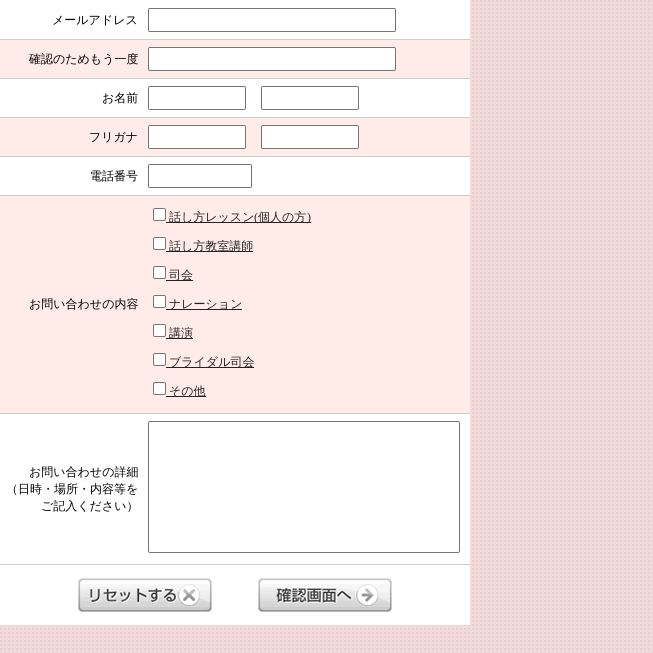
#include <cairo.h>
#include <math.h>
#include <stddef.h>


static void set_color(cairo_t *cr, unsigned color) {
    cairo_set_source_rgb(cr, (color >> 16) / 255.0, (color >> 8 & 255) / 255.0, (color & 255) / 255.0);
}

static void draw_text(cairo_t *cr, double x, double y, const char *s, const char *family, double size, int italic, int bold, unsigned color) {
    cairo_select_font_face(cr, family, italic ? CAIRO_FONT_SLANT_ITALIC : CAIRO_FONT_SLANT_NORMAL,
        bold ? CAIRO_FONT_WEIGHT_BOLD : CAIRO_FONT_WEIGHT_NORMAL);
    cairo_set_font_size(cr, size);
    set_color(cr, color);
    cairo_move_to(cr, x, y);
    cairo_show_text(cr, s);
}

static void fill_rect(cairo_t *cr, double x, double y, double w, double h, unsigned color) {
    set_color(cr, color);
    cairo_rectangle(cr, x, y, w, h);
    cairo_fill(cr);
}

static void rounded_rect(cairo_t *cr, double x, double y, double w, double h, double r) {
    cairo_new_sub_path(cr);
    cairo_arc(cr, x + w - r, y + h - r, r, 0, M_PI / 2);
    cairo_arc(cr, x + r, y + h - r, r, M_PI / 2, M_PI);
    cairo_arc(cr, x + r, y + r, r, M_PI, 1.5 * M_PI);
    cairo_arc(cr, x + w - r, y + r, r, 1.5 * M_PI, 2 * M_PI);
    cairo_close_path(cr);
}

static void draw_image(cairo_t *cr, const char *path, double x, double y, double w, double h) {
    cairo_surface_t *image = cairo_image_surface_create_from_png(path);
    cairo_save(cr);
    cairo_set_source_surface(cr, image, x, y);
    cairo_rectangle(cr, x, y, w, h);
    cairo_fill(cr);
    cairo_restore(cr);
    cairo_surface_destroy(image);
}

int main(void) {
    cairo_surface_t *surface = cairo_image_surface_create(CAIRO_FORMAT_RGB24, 653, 653);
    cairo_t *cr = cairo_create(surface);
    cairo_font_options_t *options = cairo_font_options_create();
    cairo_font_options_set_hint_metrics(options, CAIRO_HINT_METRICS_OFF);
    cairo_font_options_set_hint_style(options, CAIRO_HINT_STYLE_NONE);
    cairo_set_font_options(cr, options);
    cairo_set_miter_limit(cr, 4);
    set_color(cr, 0xFFFFFF);
    cairo_paint(cr);
    draw_image(cr, "assets/img1.png", 0, 0, 653, 653);
    fill_rect(cr, 0, 0, 470, 625, 0xFFFFFF);
    fill_rect(cr, 0, 39, 470, 1, 0xCCCCCC);
    draw_text(cr, 52, 24, "メールアドレス", "WenQuanYi Zen Hei Medium", 12, 0, 0, 0x000000);
    rounded_rect(cr, 148.5, 8.5, 247, 23, 1.5);
    set_color(cr, 0x767676);
    cairo_set_line_width(cr, 1);
    cairo_stroke(cr);
    fill_rect(cr, 0, 40, 470, 38, 0xFFECE9);
    fill_rect(cr, 0, 78, 470, 1, 0xCCCCCC);
    draw_text(cr, 29, 63, "確認のためもう一度", "WenQuanYi Zen Hei Medium", 12, 0, 0, 0x000000);
    set_color(cr, 0xFFFFFF);
    rounded_rect(cr, 148.5, 47.5, 247, 23, 1.5);
    cairo_fill_preserve(cr);
    set_color(cr, 0x767676);
    cairo_stroke(cr);
    fill_rect(cr, 0, 117, 470, 1, 0xCCCCCC);
    draw_text(cr, 102, 102, "お名前", "WenQuanYi Zen Hei Medium", 12, 0, 0, 0x000000);
    rounded_rect(cr, 148.5, 86.5, 97, 23, 1.5);
    set_color(cr, 0x767676);
    cairo_stroke(cr);
    rounded_rect(cr, 261.5, 86.5, 97, 23, 1.5);
    cairo_stroke(cr);
    fill_rect(cr, 0, 118, 470, 38, 0xFFECE9);
    fill_rect(cr, 0, 156, 470, 1, 0xCCCCCC);
    draw_text(cr, 89, 141, "フリガナ", "WenQuanYi Zen Hei Medium", 12, 0, 0, 0x000000);
    set_color(cr, 0xFFFFFF);
    rounded_rect(cr, 148.5, 125.5, 97, 23, 1.5);
    cairo_fill_preserve(cr);
    set_color(cr, 0x767676);
    cairo_stroke(cr);
    set_color(cr, 0xFFFFFF);
    rounded_rect(cr, 261.5, 125.5, 97, 23, 1.5);
    cairo_fill_preserve(cr);
    set_color(cr, 0x767676);
    cairo_stroke(cr);
    fill_rect(cr, 0, 195, 470, 1, 0xCCCCCC);
    draw_text(cr, 90, 180, "電話番号", "WenQuanYi Zen Hei Medium", 12, 0, 0, 0x000000);
    rounded_rect(cr, 148.5, 164.5, 103, 23, 1.5);
    set_color(cr, 0x767676);
    cairo_stroke(cr);
    fill_rect(cr, 0, 196, 470, 217, 0xFFECE9);
    fill_rect(cr, 0, 413, 470, 1, 0xCCCCCC);
    draw_text(cr, 29, 308, "お問い合わせの内容", "WenQuanYi Zen Hei Medium", 12, 0, 0, 0x000000);
    set_color(cr, 0xFFFFFF);
    rounded_rect(cr, 153.5, 208.5, 12, 12, 1.5);
    cairo_fill_preserve(cr);
    set_color(cr, 0x767676);
    cairo_stroke(cr);
    fill_rect(cr, 166, 222, 145, 1, 0x232323);
    draw_text(cr, 169, 221, "話し方レッスン", "WenQuanYi Zen Hei Medium", 12, 0, 0, 0x232323);
    draw_text(cr, 254, 221, "(", "Liberation Serif", 12, 0, 0, 0x232323);
    draw_text(cr, 258, 221, "個人の方", "WenQuanYi Zen Hei Medium", 12, 0, 0, 0x232323);
    draw_text(cr, 307, 221, ")", "Liberation Serif", 12, 0, 0, 0x232323);
    set_color(cr, 0xFFFFFF);
    rounded_rect(cr, 153.5, 237.5, 12, 12, 1.5);
    cairo_fill_preserve(cr);
    set_color(cr, 0x767676);
    cairo_stroke(cr);
    fill_rect(cr, 166, 251, 87, 1, 0x232323);
    draw_text(cr, 169, 250, "話し方教室講師", "WenQuanYi Zen Hei Medium", 12, 0, 0, 0x232323);
    set_color(cr, 0xFFFFFF);
    rounded_rect(cr, 153.5, 266.5, 12, 12, 1.5);
    cairo_fill_preserve(cr);
    set_color(cr, 0x767676);
    cairo_stroke(cr);
    fill_rect(cr, 166, 280, 27, 1, 0x232323);
    draw_text(cr, 169, 279, "司会", "WenQuanYi Zen Hei Medium", 12, 0, 0, 0x232323);
    set_color(cr, 0xFFFFFF);
    rounded_rect(cr, 153.5, 295.5, 12, 12, 1.5);
    cairo_fill_preserve(cr);
    set_color(cr, 0x767676);
    cairo_stroke(cr);
    fill_rect(cr, 166, 309, 76, 1, 0x232323);
    draw_text(cr, 169, 308, "ナレーション", "WenQuanYi Zen Hei Medium", 12, 0, 0, 0x232323);
    set_color(cr, 0xFFFFFF);
    rounded_rect(cr, 153.5, 324.5, 12, 12, 1.5);
    cairo_fill_preserve(cr);
    set_color(cr, 0x767676);
    cairo_stroke(cr);
    fill_rect(cr, 166, 338, 27, 1, 0x232323);
    draw_text(cr, 169, 337, "講演", "WenQuanYi Zen Hei Medium", 12, 0, 0, 0x232323);
    set_color(cr, 0xFFFFFF);
    rounded_rect(cr, 153.5, 353.5, 12, 12, 1.5);
    cairo_fill_preserve(cr);
    set_color(cr, 0x767676);
    cairo_stroke(cr);
    fill_rect(cr, 166, 367, 88, 1, 0x232323);
    draw_text(cr, 169, 366, "ブライダル司会", "WenQuanYi Zen Hei Medium", 12, 0, 0, 0x232323);
    set_color(cr, 0xFFFFFF);
    rounded_rect(cr, 153.5, 382.5, 12, 12, 1.5);
    cairo_fill_preserve(cr);
    set_color(cr, 0x767676);
    cairo_stroke(cr);
    fill_rect(cr, 166, 396, 40, 1, 0x232323);
    draw_text(cr, 169, 395, "その他", "WenQuanYi Zen Hei Medium", 12, 0, 0, 0x232323);
    fill_rect(cr, 0, 564, 470, 1, 0xCCCCCC);
    draw_text(cr, 29, 476, "お問い合わせの詳細", "WenQuanYi Zen Hei Medium", 12, 0, 0, 0x000000);
    draw_text(cr, 6, 493, "（日時・場所・内容等を", "WenQuanYi Zen Hei Medium", 12, 0, 0, 0x000000);
    draw_text(cr, 41, 510, "ご記入ください）", "WenQuanYi Zen Hei Medium", 12, 0, 0, 0x000000);
    rounded_rect(cr, 148.5, 421.5, 311, 131, 1.5);
    set_color(cr, 0x767676);
    cairo_stroke(cr);
    draw_image(cr, "assets/img2.png", 78, 578, 134, 34);
    draw_image(cr, "assets/img3.png", 258, 578, 134, 34);
    cairo_surface_write_to_png(surface, "output.png");
    cairo_font_options_destroy(options);
    cairo_destroy(cr);
    cairo_surface_destroy(surface);
    return 0;
}
